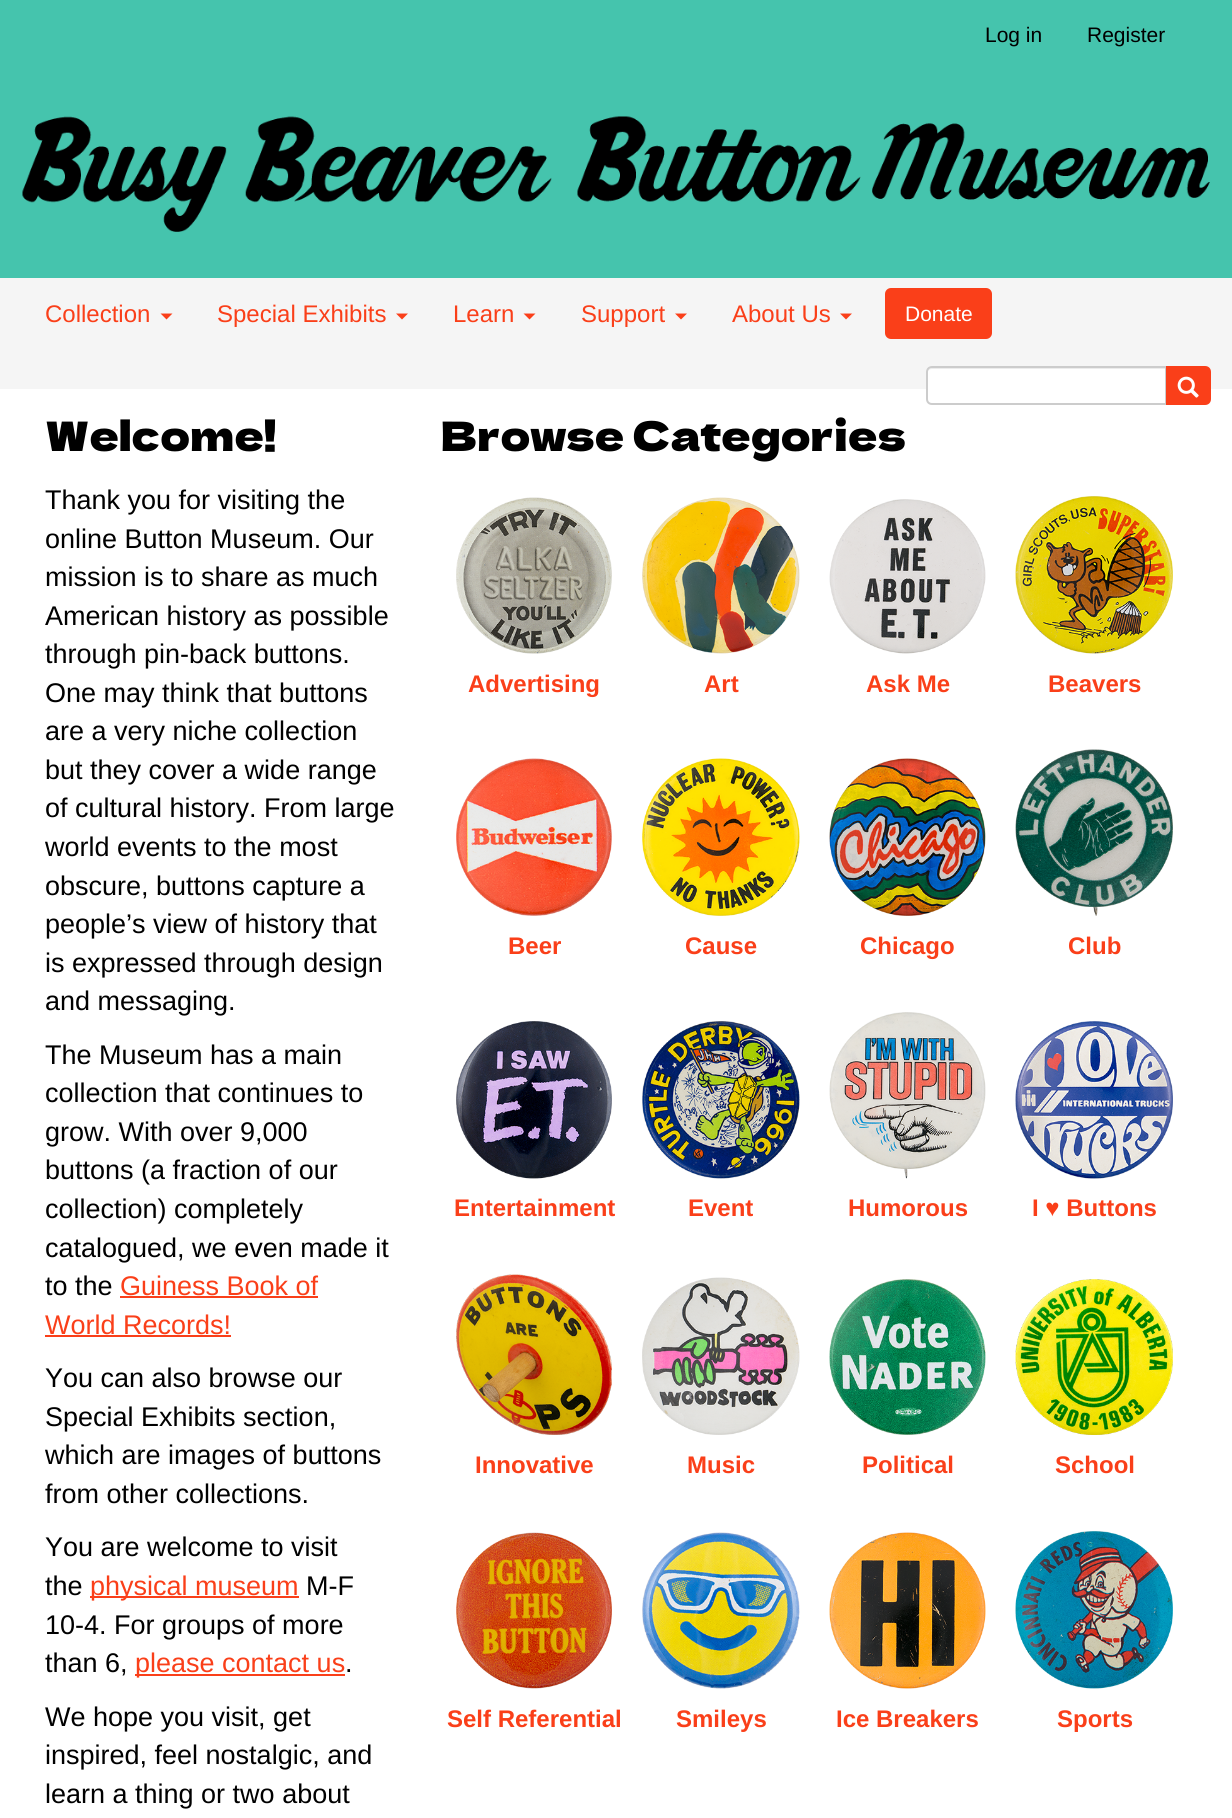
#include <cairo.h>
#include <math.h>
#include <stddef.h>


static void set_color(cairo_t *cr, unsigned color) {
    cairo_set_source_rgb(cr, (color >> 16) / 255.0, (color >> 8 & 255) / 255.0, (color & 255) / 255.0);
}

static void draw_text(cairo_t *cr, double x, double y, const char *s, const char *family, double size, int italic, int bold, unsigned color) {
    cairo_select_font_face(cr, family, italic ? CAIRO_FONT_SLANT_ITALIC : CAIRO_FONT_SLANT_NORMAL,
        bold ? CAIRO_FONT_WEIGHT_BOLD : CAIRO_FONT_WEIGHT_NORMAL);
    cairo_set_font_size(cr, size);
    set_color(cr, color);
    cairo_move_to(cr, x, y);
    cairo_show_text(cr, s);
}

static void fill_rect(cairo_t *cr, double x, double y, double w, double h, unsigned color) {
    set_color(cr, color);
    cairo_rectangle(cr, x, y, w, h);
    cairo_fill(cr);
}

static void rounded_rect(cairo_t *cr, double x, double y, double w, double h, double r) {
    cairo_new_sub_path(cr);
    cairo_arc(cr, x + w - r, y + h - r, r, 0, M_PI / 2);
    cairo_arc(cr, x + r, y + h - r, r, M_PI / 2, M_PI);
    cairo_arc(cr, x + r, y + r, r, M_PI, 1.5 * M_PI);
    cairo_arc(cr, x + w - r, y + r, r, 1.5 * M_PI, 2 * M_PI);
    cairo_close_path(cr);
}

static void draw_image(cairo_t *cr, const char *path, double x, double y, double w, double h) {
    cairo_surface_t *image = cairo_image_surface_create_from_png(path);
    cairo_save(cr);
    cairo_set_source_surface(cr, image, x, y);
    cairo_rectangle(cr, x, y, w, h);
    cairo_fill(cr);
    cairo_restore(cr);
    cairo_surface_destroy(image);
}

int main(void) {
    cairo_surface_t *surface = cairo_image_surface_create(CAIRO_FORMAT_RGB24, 1232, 1818);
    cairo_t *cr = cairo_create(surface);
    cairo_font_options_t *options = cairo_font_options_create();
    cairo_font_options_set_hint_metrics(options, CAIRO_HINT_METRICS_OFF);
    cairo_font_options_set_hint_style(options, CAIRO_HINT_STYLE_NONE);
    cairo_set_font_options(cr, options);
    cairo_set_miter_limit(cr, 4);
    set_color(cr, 0xFFFFFF);
    cairo_paint(cr);
    fill_rect(cr, 0, 0, 1232, 278, 0x45C4AD);
    draw_text(cr, 985, 42, "Log in", "Liberation Sans", 21, 0, 0, 0x000000);
    draw_text(cr, 1087, 42, "Register", "Liberation Sans", 21, 0, 0, 0x000000);
    draw_image(cr, "assets/img1.png", 22, 116, 1188, 116);
    fill_rect(cr, 0, 278, 1232, 111, 0xF5F5F5);
    draw_text(cr, 45, 322, "Collection", "Liberation Sans", 24, 0, 0, 0xFA3F19);
    cairo_new_path(cr);
    cairo_move_to(cr, 160.5, 313.5);
    cairo_line_to(cr, 172.5, 313.5);
    cairo_line_to(cr, 166.5, 319.5);
    cairo_close_path(cr);
    cairo_fill(cr);
    draw_text(cr, 217, 322, "Special Exhibits", "Liberation Sans", 24, 0, 0, 0xFA3F19);
    cairo_new_path(cr);
    cairo_move_to(cr, 396, 313.5);
    cairo_line_to(cr, 408, 313.5);
    cairo_line_to(cr, 402, 319.5);
    cairo_close_path(cr);
    cairo_fill(cr);
    draw_text(cr, 453, 322, "Learn", "Liberation Sans", 24, 0, 0, 0xFA3F19);
    cairo_new_path(cr);
    cairo_move_to(cr, 523.5, 313.5);
    cairo_line_to(cr, 535.5, 313.5);
    cairo_line_to(cr, 529.5, 319.5);
    cairo_close_path(cr);
    cairo_fill(cr);
    draw_text(cr, 581, 322, "Support", "Liberation Sans", 24, 0, 0, 0xFA3F19);
    cairo_new_path(cr);
    cairo_move_to(cr, 675, 313.5);
    cairo_line_to(cr, 687, 313.5);
    cairo_line_to(cr, 681, 319.5);
    cairo_close_path(cr);
    cairo_fill(cr);
    draw_text(cr, 732, 322, "About Us", "Liberation Sans", 24, 0, 0, 0xFA3F19);
    cairo_new_path(cr);
    cairo_move_to(cr, 840, 313.5);
    cairo_line_to(cr, 852, 313.5);
    cairo_line_to(cr, 846, 319.5);
    cairo_close_path(cr);
    cairo_fill(cr);
    rounded_rect(cr, 886, 289, 105, 49, 5);
    cairo_fill_preserve(cr);
    cairo_stroke(cr);
    draw_text(cr, 905, 321, "Donate", "Liberation Sans", 21, 0, 0, 0xFFFFFF);
    cairo_new_path(cr);
    cairo_move_to(cr, 932, 366);
    cairo_line_to(cr, 1167, 366);
    cairo_line_to(cr, 1167, 405);
    cairo_line_to(cr, 932, 405);
    cairo_curve_to(cr, 928.5, 405, 926, 402.5, 926, 399);
    cairo_line_to(cr, 926, 372);
    cairo_curve_to(cr, 926, 368.5, 928.5, 366, 932, 366);
    cairo_close_path(cr);
    cairo_fill(cr);
    set_color(cr, 0xECECEC);
    cairo_new_path(cr);
    cairo_move_to(cr, 932, 369);
    cairo_line_to(cr, 1166, 369);
    cairo_line_to(cr, 1166, 368);
    cairo_line_to(cr, 932, 368);
    cairo_curve_to(cr, 929, 368, 927, 370, 927, 373);
    cairo_line_to(cr, 927, 374);
    cairo_curve_to(cr, 927, 371, 929, 369, 932, 369);
    cairo_close_path(cr);
    cairo_fill(cr);
    cairo_new_path(cr);
    cairo_move_to(cr, 932, 367);
    cairo_line_to(cr, 1166, 367);
    cairo_line_to(cr, 1166, 404);
    cairo_line_to(cr, 932, 404);
    cairo_curve_to(cr, 929, 404, 927, 402, 927, 399);
    cairo_line_to(cr, 927, 372);
    cairo_curve_to(cr, 927, 369, 929, 367, 932, 367);
    cairo_close_path(cr);
    set_color(cr, 0xCCCCCC);
    cairo_stroke(cr);
    set_color(cr, 0xFA3F19);
    cairo_new_path(cr);
    cairo_move_to(cr, 1167, 367);
    cairo_line_to(cr, 1205, 367);
    cairo_curve_to(cr, 1208, 367, 1210, 369, 1210, 372);
    cairo_line_to(cr, 1210, 399);
    cairo_curve_to(cr, 1210, 402, 1208, 404, 1205, 404);
    cairo_line_to(cr, 1167, 404);
    cairo_close_path(cr);
    cairo_fill_preserve(cr);
    cairo_stroke(cr);
    draw_image(cr, "assets/img2.png", 1177, 376, 22, 22);
    draw_text(cr, 45, 451, "Welcome!", "Dela Gothic One", 40.5, 0, 0, 0x000000);
    draw_text(cr, 45, 509, "Thank you for visiting the", "Liberation Sans", 27, 0, 0, 0x000000);
    draw_text(cr, 45, 548, "online Button Museum. Our", "Liberation Sans", 27, 0, 0, 0x000000);
    draw_text(cr, 45, 586, "mission is to share as much", "Liberation Sans", 27, 0, 0, 0x000000);
    draw_text(cr, 45, 625, "American history as possible", "Liberation Sans", 27, 0, 0, 0x000000);
    draw_text(cr, 45, 663, "through pin-back buttons.", "Liberation Sans", 27, 0, 0, 0x000000);
    draw_text(cr, 45, 702, "One may think that buttons", "Liberation Sans", 27, 0, 0, 0x000000);
    draw_text(cr, 45, 740, "are a very niche collection", "Liberation Sans", 27, 0, 0, 0x000000);
    draw_text(cr, 45, 779, "but they cover a wide range", "Liberation Sans", 27, 0, 0, 0x000000);
    draw_text(cr, 45, 817, "of cultural history. From large", "Liberation Sans", 27, 0, 0, 0x000000);
    draw_text(cr, 45, 856, "world events to the most", "Liberation Sans", 27, 0, 0, 0x000000);
    draw_text(cr, 45, 895, "obscure, buttons capture a", "Liberation Sans", 27, 0, 0, 0x000000);
    draw_text(cr, 45, 933, "people’s view of history that", "Liberation Sans", 27, 0, 0, 0x000000);
    draw_text(cr, 45, 972, "is expressed through design", "Liberation Sans", 27, 0, 0, 0x000000);
    draw_text(cr, 45, 1010, "and messaging.", "Liberation Sans", 27, 0, 0, 0x000000);
    draw_text(cr, 45, 1064, "The Museum has a main", "Liberation Sans", 27, 0, 0, 0x000000);
    draw_text(cr, 45, 1102, "collection that continues to", "Liberation Sans", 27, 0, 0, 0x000000);
    draw_text(cr, 45, 1141, "grow. With over 9,000", "Liberation Sans", 27, 0, 0, 0x000000);
    draw_text(cr, 45, 1179, "buttons (a fraction of our", "Liberation Sans", 27, 0, 0, 0x000000);
    draw_text(cr, 45, 1218, "collection) completely", "Liberation Sans", 27, 0, 0, 0x000000);
    draw_text(cr, 45, 1257, "catalogued, we even made it", "Liberation Sans", 27, 0, 0, 0x000000);
    draw_text(cr, 45, 1295, "to the", "Liberation Sans", 27, 0, 0, 0x000000);
    draw_text(cr, 120, 1295, "Guiness Book of", "Liberation Sans", 27, 0, 0, 0xFA3F19);
    fill_rect(cr, 120, 1296, 198, 2, 0xFA3F19);
    draw_text(cr, 45, 1334, "World Records!", "Liberation Sans", 27, 0, 0, 0xFA3F19);
    fill_rect(cr, 45, 1335, 186, 2, 0xFA3F19);
    draw_text(cr, 45, 1387, "You can also browse our", "Liberation Sans", 27, 0, 0, 0x000000);
    draw_text(cr, 45, 1426, "Special Exhibits section,", "Liberation Sans", 27, 0, 0, 0x000000);
    draw_text(cr, 45, 1464, "which are images of buttons", "Liberation Sans", 27, 0, 0, 0x000000);
    draw_text(cr, 45, 1503, "from other collections.", "Liberation Sans", 27, 0, 0, 0x000000);
    draw_text(cr, 45, 1556, "You are welcome to visit", "Liberation Sans", 27, 0, 0, 0x000000);
    draw_text(cr, 45, 1595, "the", "Liberation Sans", 27, 0, 0, 0x000000);
    fill_rect(cr, 90, 1596, 209, 2, 0xFA3F19);
    draw_text(cr, 90, 1595, "physical museum", "Liberation Sans", 27, 0, 0, 0xFA3F19);
    draw_text(cr, 306, 1595, "M-F", "Liberation Sans", 27, 0, 0, 0x000000);
    draw_text(cr, 45, 1634, "10-4. For groups of more", "Liberation Sans", 27, 0, 0, 0x000000);
    draw_text(cr, 45, 1672, "than 6,", "Liberation Sans", 27, 0, 0, 0x000000);
    fill_rect(cr, 135, 1674, 210, 2, 0xFA3F19);
    draw_text(cr, 135, 1672, "please contact us", "Liberation Sans", 27, 0, 0, 0xFA3F19);
    draw_text(cr, 345, 1672, ".", "Liberation Sans", 27, 0, 0, 0x000000);
    draw_text(cr, 45, 1726, "We hope you visit, get", "Liberation Sans", 27, 0, 0, 0x000000);
    draw_text(cr, 45, 1764, "inspired, feel nostalgic, and", "Liberation Sans", 27, 0, 0, 0x000000);
    draw_text(cr, 45, 1803, "learn a thing or two about", "Liberation Sans", 27, 0, 0, 0x000000);
    draw_text(cr, 441, 451, "Browse Categories", "Dela Gothic One", 40.5, 0, 0, 0x000000);
    draw_image(cr, "assets/img3.png", 456, 497, 156, 157);
    draw_text(cr, 468, 692, "Advertising", "Liberation Sans", 24, 0, 1, 0xFA3F19);
    draw_image(cr, "assets/img4.png", 642, 497, 158, 157);
    draw_text(cr, 704, 692, "Art", "Liberation Sans", 24, 0, 1, 0xFA3F19);
    draw_image(cr, "assets/img5.png", 829, 499, 157, 155);
    draw_text(cr, 866, 692, "Ask Me", "Liberation Sans", 24, 0, 1, 0xFA3F19);
    draw_image(cr, "assets/img6.png", 1015, 496, 158, 158);
    draw_text(cr, 1048, 692, "Beavers", "Liberation Sans", 24, 0, 1, 0xFA3F19);
    draw_image(cr, "assets/img7.png", 456, 758, 156, 158);
    draw_text(cr, 508, 954, "Beer", "Liberation Sans", 24, 0, 1, 0xFA3F19);
    draw_image(cr, "assets/img8.png", 642, 758, 158, 158);
    draw_text(cr, 685, 954, "Cause", "Liberation Sans", 24, 0, 1, 0xFA3F19);
    draw_image(cr, "assets/img9.png", 829, 758, 157, 158);
    draw_text(cr, 860, 954, "Chicago", "Liberation Sans", 24, 0, 1, 0xFA3F19);
    draw_image(cr, "assets/img10.png", 1015, 749, 158, 167);
    draw_text(cr, 1068, 954, "Club", "Liberation Sans", 24, 0, 1, 0xFA3F19);
    draw_image(cr, "assets/img11.png", 456, 1021, 156, 158);
    draw_text(cr, 454, 1216, "Entertainment", "Liberation Sans", 24, 0, 1, 0xFA3F19);
    draw_image(cr, "assets/img12.png", 642, 1021, 158, 158);
    draw_text(cr, 688, 1216, "Event", "Liberation Sans", 24, 0, 1, 0xFA3F19);
    draw_image(cr, "assets/img13.png", 829, 1012, 157, 167);
    draw_text(cr, 848, 1216, "Humorous", "Liberation Sans", 24, 0, 1, 0xFA3F19);
    draw_image(cr, "assets/img14.png", 1015, 1021, 158, 158);
    draw_text(cr, 1032, 1216, "I ♥ Buttons", "Liberation Sans", 24, 0, 1, 0xFA3F19);
    draw_image(cr, "assets/img15.png", 456, 1274, 156, 161);
    draw_text(cr, 475, 1473, "Innovative", "Liberation Sans", 24, 0, 1, 0xFA3F19);
    draw_image(cr, "assets/img16.png", 642, 1277, 158, 158);
    draw_text(cr, 687, 1473, "Music", "Liberation Sans", 24, 0, 1, 0xFA3F19);
    draw_image(cr, "assets/img17.png", 829, 1279, 157, 156);
    draw_text(cr, 862, 1473, "Political", "Liberation Sans", 24, 0, 1, 0xFA3F19);
    draw_image(cr, "assets/img18.png", 1015, 1279, 158, 156);
    draw_text(cr, 1055, 1473, "School", "Liberation Sans", 24, 0, 1, 0xFA3F19);
    draw_image(cr, "assets/img19.png", 456, 1532, 156, 157);
    draw_text(cr, 447, 1727, "Self Referential", "Liberation Sans", 24, 0, 1, 0xFA3F19);
    draw_image(cr, "assets/img20.png", 642, 1532, 158, 157);
    draw_text(cr, 676, 1727, "Smileys", "Liberation Sans", 24, 0, 1, 0xFA3F19);
    draw_image(cr, "assets/img21.png", 829, 1532, 157, 157);
    draw_text(cr, 836, 1727, "Ice Breakers", "Liberation Sans", 24, 0, 1, 0xFA3F19);
    draw_image(cr, "assets/img22.png", 1015, 1531, 158, 158);
    draw_text(cr, 1057, 1727, "Sports", "Liberation Sans", 24, 0, 1, 0xFA3F19);
    cairo_surface_write_to_png(surface, "output.png");
    cairo_font_options_destroy(options);
    cairo_destroy(cr);
    cairo_surface_destroy(surface);
    return 0;
}
